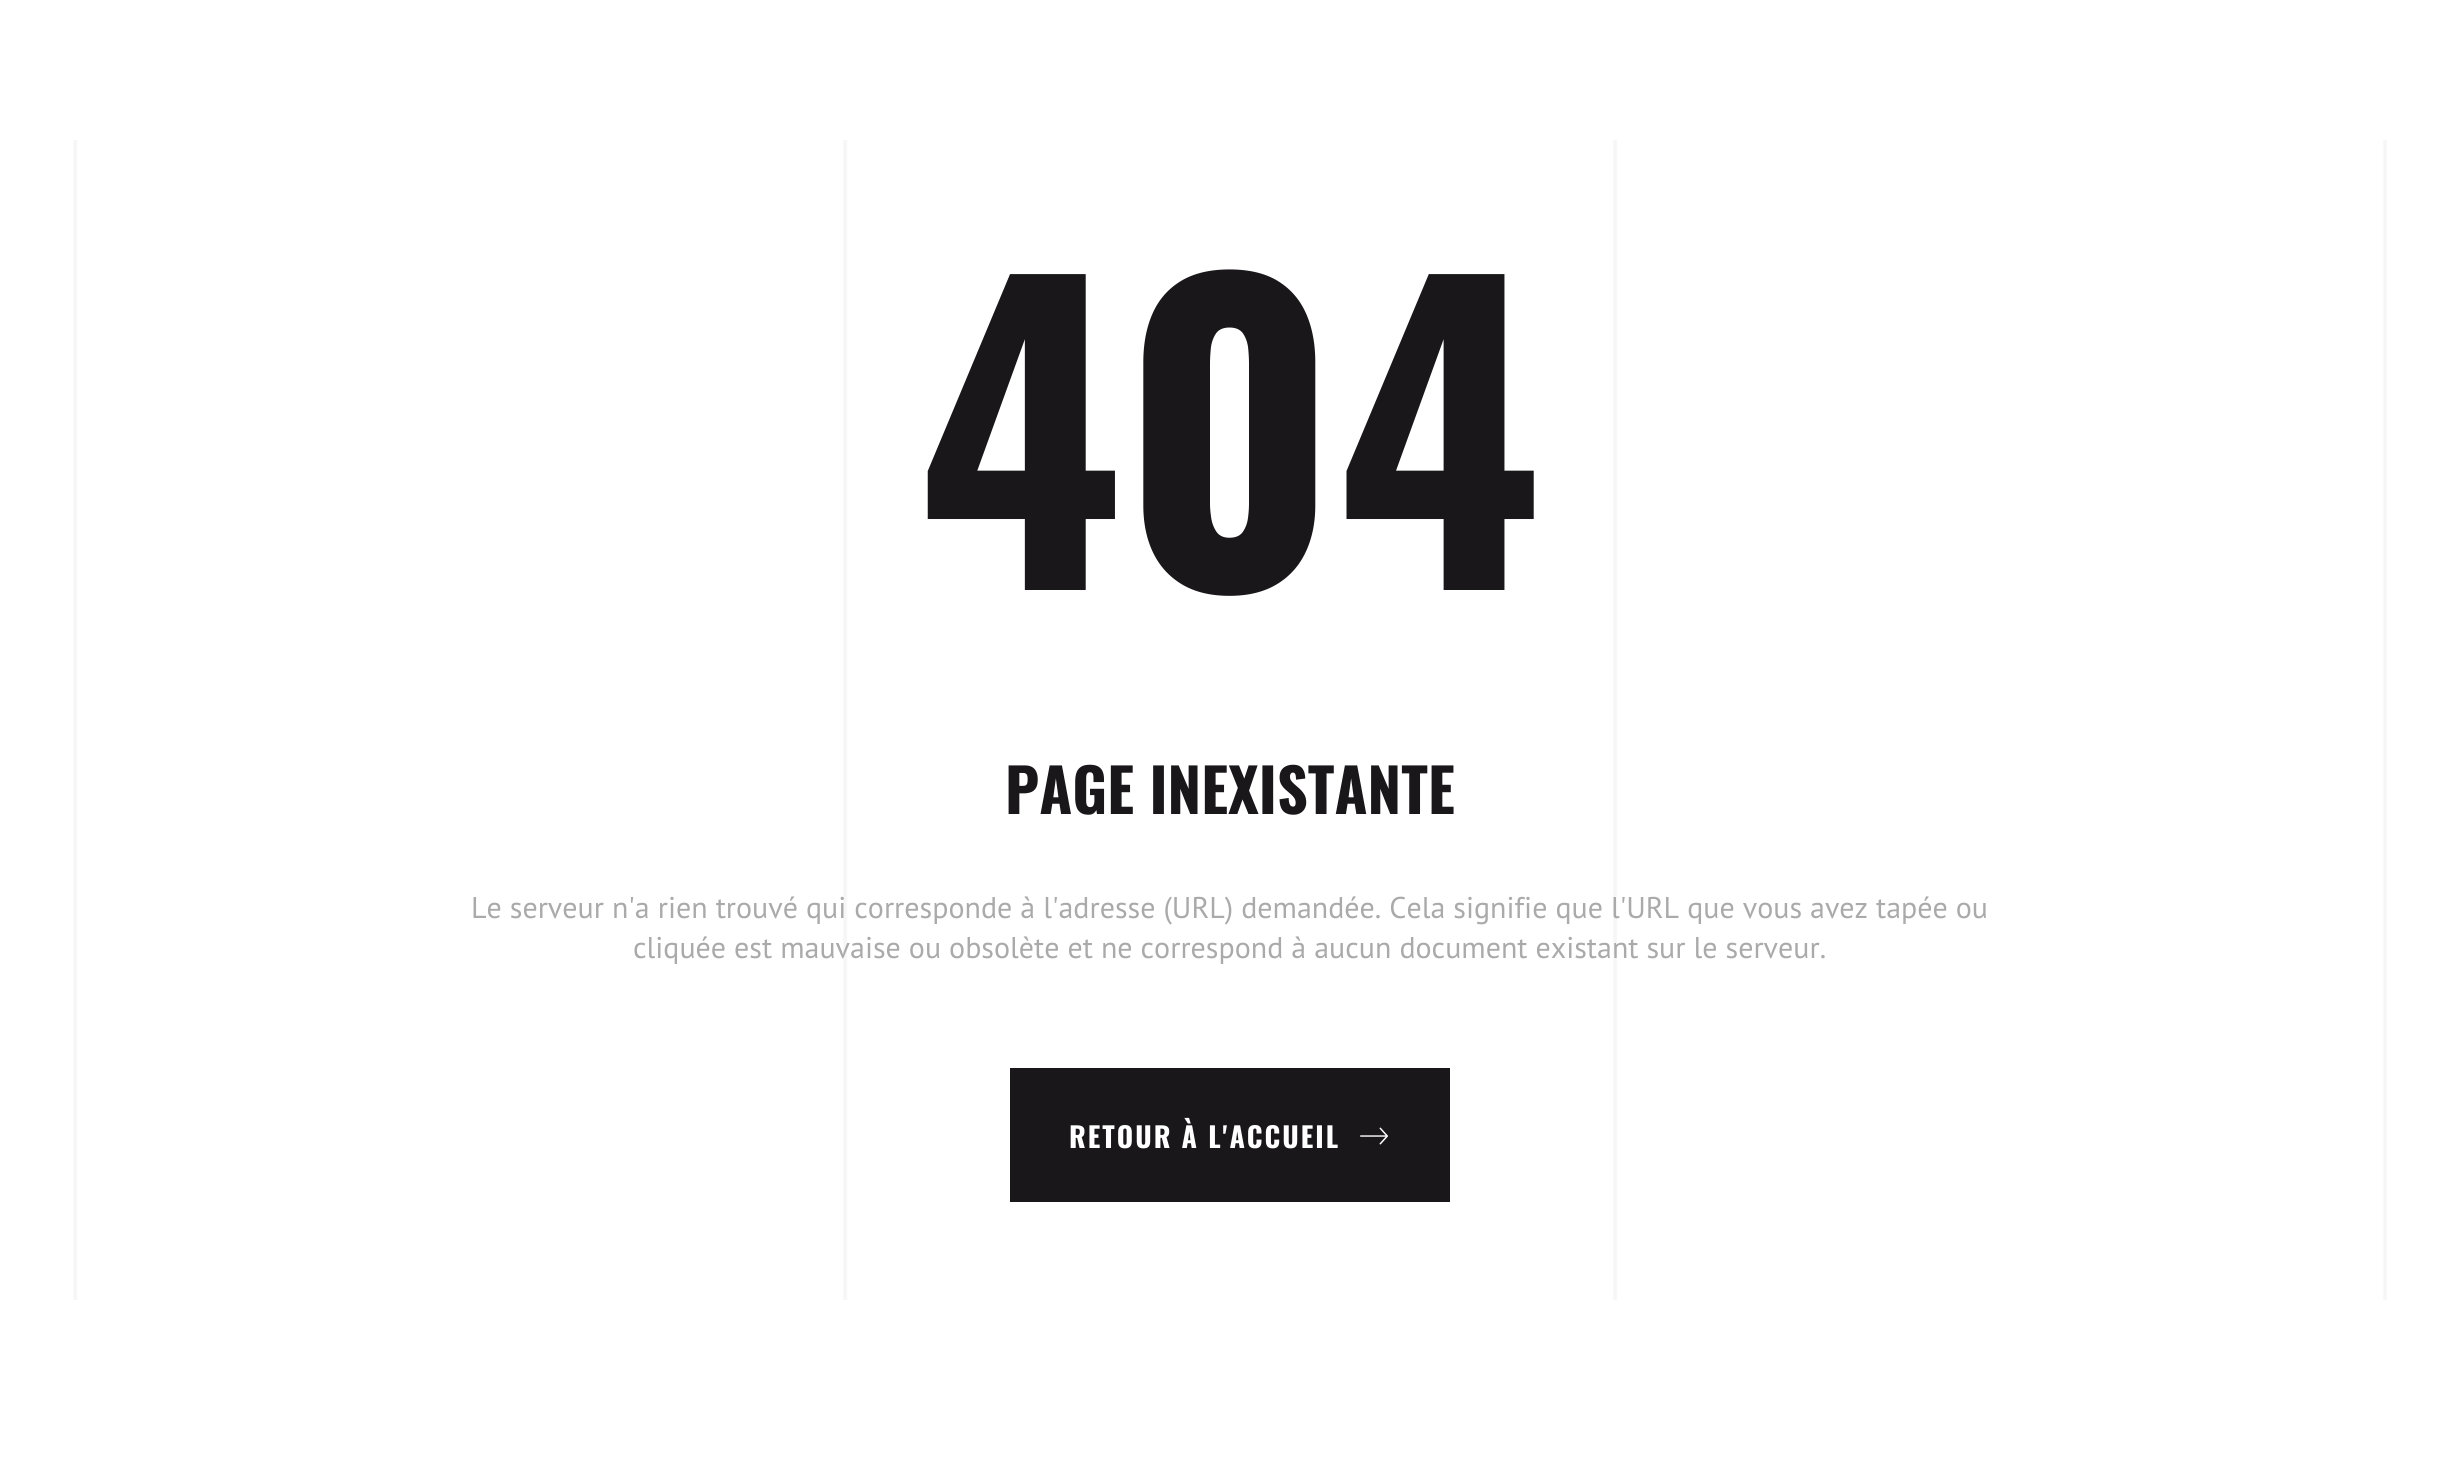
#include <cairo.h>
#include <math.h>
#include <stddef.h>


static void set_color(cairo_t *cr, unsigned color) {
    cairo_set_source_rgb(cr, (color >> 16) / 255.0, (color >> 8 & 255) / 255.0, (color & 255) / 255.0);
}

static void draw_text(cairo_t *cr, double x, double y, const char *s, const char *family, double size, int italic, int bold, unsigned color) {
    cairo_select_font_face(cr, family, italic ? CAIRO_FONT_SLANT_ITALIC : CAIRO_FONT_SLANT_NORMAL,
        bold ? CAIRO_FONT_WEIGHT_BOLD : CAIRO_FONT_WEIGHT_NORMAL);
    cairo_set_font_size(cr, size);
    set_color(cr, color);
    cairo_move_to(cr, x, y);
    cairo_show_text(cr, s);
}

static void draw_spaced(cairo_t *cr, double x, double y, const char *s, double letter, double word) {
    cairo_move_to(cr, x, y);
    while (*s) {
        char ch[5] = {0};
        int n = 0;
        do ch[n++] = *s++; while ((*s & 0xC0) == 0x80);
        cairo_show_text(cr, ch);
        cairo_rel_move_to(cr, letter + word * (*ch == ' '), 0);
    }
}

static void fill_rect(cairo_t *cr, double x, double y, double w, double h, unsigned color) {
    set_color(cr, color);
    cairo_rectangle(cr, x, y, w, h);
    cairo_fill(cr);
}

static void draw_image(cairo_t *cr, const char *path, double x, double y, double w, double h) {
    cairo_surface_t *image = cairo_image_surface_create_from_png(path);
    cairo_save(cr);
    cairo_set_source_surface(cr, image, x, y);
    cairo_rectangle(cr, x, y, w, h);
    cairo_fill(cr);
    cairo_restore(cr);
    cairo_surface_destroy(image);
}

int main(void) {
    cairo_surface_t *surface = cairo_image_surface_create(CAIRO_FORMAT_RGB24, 2459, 1468);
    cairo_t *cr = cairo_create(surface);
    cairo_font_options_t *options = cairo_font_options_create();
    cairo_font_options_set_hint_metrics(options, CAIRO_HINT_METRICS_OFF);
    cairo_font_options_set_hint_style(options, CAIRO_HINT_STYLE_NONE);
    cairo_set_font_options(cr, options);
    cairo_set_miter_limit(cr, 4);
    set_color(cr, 0xFFFFFF);
    cairo_paint(cr);
    draw_image(cr, "assets/img1.png", 73, 140, 2314, 1160);
    draw_text(cr, 918, 590, "404", "Oswald", 390, 0, 1, 0x1A171B);
    draw_text(cr, 1005, 814, "PAGE INEXISTANTE", "Oswald", 60, 0, 1, 0x1A171B);
    draw_text(cr, 471, 918, "Le serveur n'a rien trouvé qui corresponde à l'adresse (URL) demandée. Cela signifie que l'URL que vous avez tapée ou", "PT Sans", 30, 0, 0, 0xAAAAAA);
    draw_text(cr, 633, 958, "cliquée est mauvaise ou obsolète et ne correspond à aucun document existant sur le serveur.", "PT Sans", 30, 0, 0, 0xAAAAAA);
    fill_rect(cr, 1010, 1068, 440, 134, 0x1A171B);
    cairo_select_font_face(cr, "Oswald", CAIRO_FONT_SLANT_NORMAL, CAIRO_FONT_WEIGHT_BOLD);
    cairo_set_font_size(cr, 28);
    set_color(cr, 0xFFFFFF);
    draw_spaced(cr, 1069, 1148, "RETOUR À L'ACCUEIL", 2, 0);
    draw_image(cr, "assets/img2.png", 1360, 1127, 28, 18);
    cairo_surface_write_to_png(surface, "output.png");
    cairo_font_options_destroy(options);
    cairo_destroy(cr);
    cairo_surface_destroy(surface);
    return 0;
}
